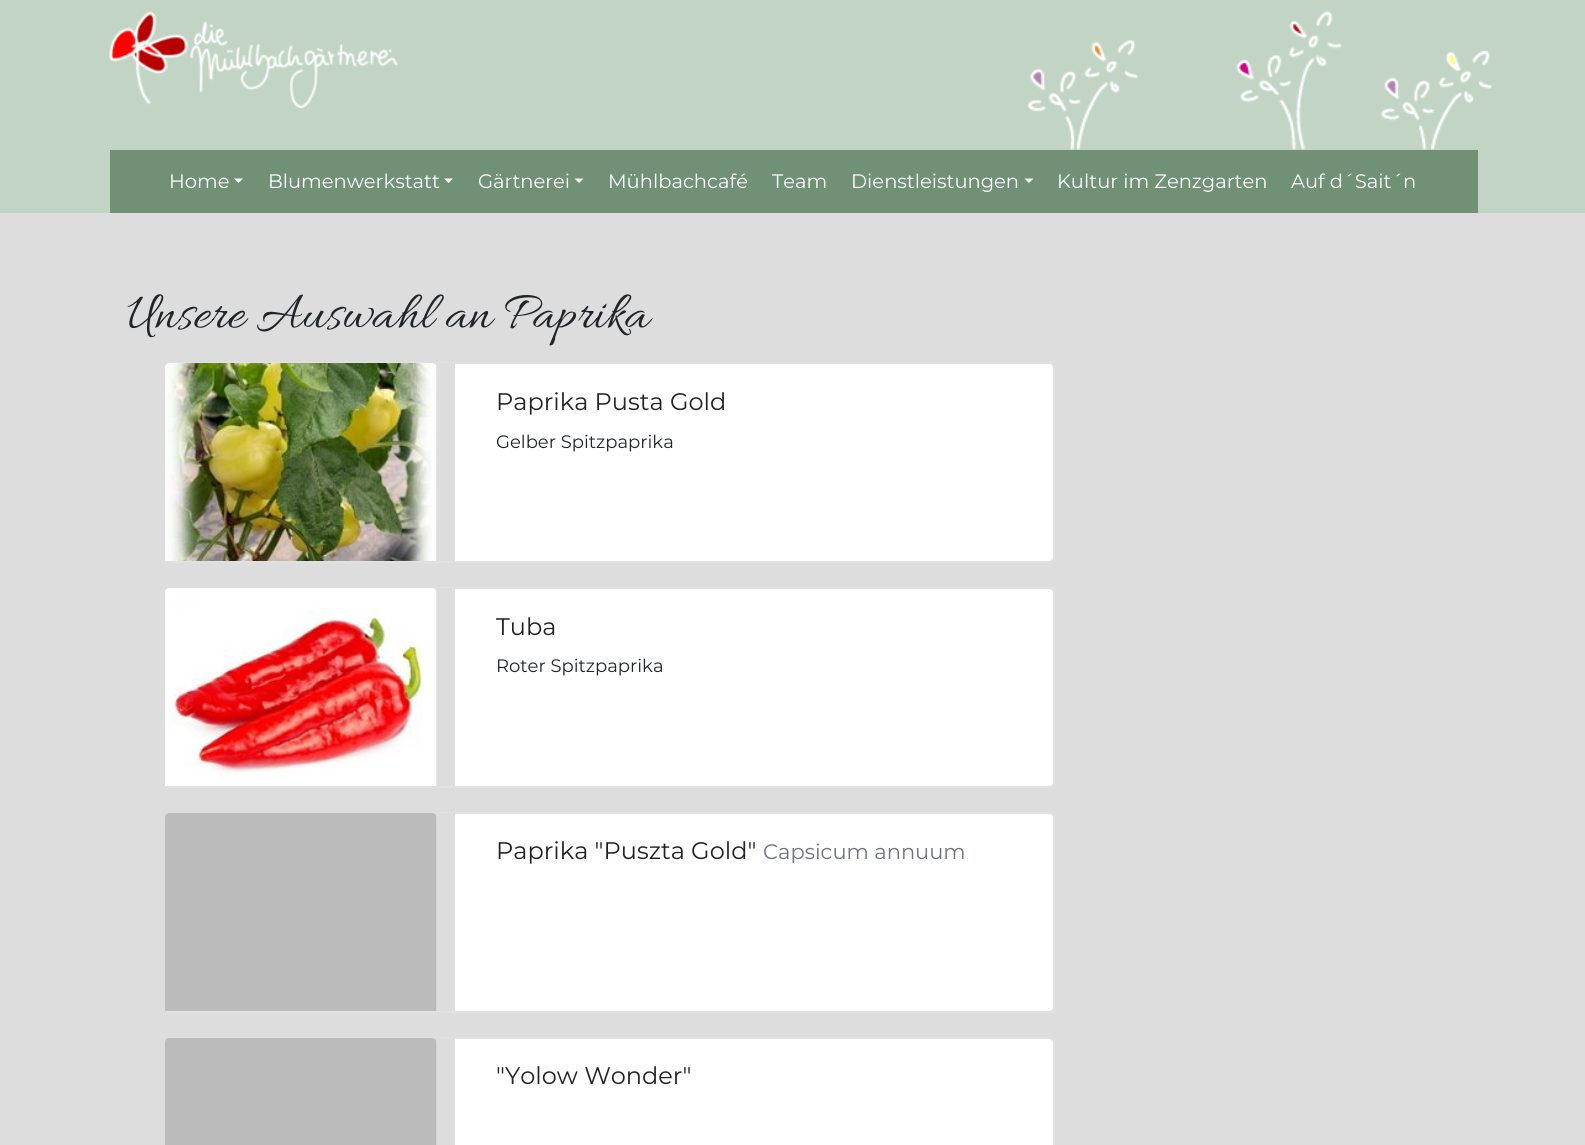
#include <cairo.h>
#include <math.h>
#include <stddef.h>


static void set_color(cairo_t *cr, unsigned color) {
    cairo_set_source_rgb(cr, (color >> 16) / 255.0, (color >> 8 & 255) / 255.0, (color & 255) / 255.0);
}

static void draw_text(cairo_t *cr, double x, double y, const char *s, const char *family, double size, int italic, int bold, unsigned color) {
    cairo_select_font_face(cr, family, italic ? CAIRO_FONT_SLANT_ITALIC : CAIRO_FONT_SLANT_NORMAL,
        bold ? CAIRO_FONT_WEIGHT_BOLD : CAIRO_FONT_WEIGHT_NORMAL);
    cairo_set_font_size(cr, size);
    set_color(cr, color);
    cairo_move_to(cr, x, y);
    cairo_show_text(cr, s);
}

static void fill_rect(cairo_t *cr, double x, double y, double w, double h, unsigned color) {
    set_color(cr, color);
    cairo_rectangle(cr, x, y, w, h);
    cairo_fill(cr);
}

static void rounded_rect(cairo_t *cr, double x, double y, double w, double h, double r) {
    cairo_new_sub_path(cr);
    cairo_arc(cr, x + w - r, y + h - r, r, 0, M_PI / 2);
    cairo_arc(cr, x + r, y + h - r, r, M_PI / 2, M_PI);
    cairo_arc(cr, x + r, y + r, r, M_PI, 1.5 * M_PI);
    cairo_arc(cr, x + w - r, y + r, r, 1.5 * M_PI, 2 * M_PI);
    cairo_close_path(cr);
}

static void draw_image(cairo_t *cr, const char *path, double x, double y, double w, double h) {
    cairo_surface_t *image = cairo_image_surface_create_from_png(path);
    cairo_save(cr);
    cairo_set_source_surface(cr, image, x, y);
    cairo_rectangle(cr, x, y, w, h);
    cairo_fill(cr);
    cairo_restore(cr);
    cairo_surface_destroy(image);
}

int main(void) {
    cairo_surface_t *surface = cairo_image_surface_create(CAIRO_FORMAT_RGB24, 1585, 1145);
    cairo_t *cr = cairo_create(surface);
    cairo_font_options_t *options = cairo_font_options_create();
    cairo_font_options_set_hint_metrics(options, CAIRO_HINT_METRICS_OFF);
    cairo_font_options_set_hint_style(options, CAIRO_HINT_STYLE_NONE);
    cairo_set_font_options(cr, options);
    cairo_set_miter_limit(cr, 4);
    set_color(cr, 0xC2D4C4);
    cairo_paint(cr);
    draw_image(cr, "assets/img1.png", 109, 12, 289, 96);
    draw_image(cr, "assets/img2.png", 1027, 10, 466, 140);
    fill_rect(cr, 110, 150, 1368, 63, 0x709176);
    draw_text(cr, 169, 188, "Home", "Montserrat", 19.5, 0, 0, 0xFFFFFF);
    cairo_new_path(cr);
    cairo_move_to(cr, 234, 178.5);
    cairo_line_to(cr, 243, 178.5);
    cairo_line_to(cr, 238.5, 183);
    cairo_close_path(cr);
    cairo_fill(cr);
    draw_text(cr, 268, 188, "Blumenwerkstatt", "Montserrat", 19.5, 0, 0, 0xFFFFFF);
    cairo_new_path(cr);
    cairo_move_to(cr, 444, 178.5);
    cairo_line_to(cr, 453, 178.5);
    cairo_line_to(cr, 448.5, 183);
    cairo_close_path(cr);
    cairo_fill(cr);
    draw_text(cr, 478, 188, "Gärtnerei", "Montserrat", 19.5, 0, 0, 0xFFFFFF);
    cairo_new_path(cr);
    cairo_move_to(cr, 574.5, 178.5);
    cairo_line_to(cr, 583.5, 178.5);
    cairo_line_to(cr, 579, 183);
    cairo_close_path(cr);
    cairo_fill(cr);
    draw_text(cr, 608, 188, "Mühlbachcafé", "Montserrat", 19.5, 0, 0, 0xFFFFFF);
    draw_text(cr, 772, 188, "Team", "Montserrat", 19.5, 0, 0, 0xFFFFFF);
    draw_text(cr, 851, 188, "Dienstleistungen", "Montserrat", 19.5, 0, 0, 0xFFFFFF);
    cairo_new_path(cr);
    cairo_move_to(cr, 1024.5, 178.5);
    cairo_line_to(cr, 1033.5, 178.5);
    cairo_line_to(cr, 1029, 183);
    cairo_close_path(cr);
    cairo_fill(cr);
    draw_text(cr, 1057, 188, "Kultur im Zenzgarten", "Montserrat", 19.5, 0, 0, 0xFFFFFF);
    draw_text(cr, 1291, 188, "Auf d´Sait´n", "Montserrat", 19.5, 0, 0, 0xFFFFFF);
    fill_rect(cr, 0, 213, 1585, 932, 0xDDDDDD);
    draw_text(cr, 127, 327, "Unsere Auswahl an Paprika", "Allura", 54, 0, 0, 0x212529);
    set_color(cr, 0xFFFFFF);
    rounded_rect(cr, 164, 362, 891, 201, 6);
    cairo_fill(cr);
    rounded_rect(cr, 165, 363, 889, 199, 5);
    cairo_set_source_rgba(cr, 0, 0, 0, 0.12);
    cairo_stroke(cr);
    fill_rect(cr, 164, 363, 291, 198, 0xDDDDDD);
    draw_image(cr, "assets/img3.png", 165, 363, 272, 198);
    draw_text(cr, 496, 410, "Paprika Pusta Gold", "Montserrat", 24, 0, 0, 0x222222);
    draw_text(cr, 496, 448, "Gelber Spitzpaprika", "Montserrat", 18, 0, 0, 0x212529);
    set_color(cr, 0xFFFFFF);
    rounded_rect(cr, 164, 587, 891, 201, 6);
    cairo_fill(cr);
    rounded_rect(cr, 165, 588, 889, 199, 5);
    cairo_set_source_rgba(cr, 0, 0, 0, 0.12);
    cairo_stroke(cr);
    fill_rect(cr, 164, 588, 291, 198, 0xDDDDDD);
    draw_image(cr, "assets/img4.png", 165, 588, 272, 198);
    draw_text(cr, 496, 635, "Tuba", "Montserrat", 24, 0, 0, 0x222222);
    draw_text(cr, 496, 672, "Roter Spitzpaprika", "Montserrat", 18, 0, 0, 0x212529);
    set_color(cr, 0xFFFFFF);
    rounded_rect(cr, 164, 812, 891, 201, 6);
    cairo_fill(cr);
    rounded_rect(cr, 165, 813, 889, 199, 5);
    cairo_set_source_rgba(cr, 0, 0, 0, 0.12);
    cairo_stroke(cr);
    fill_rect(cr, 164, 813, 291, 198, 0xDDDDDD);
    draw_image(cr, "assets/img5.png", 165, 813, 272, 198);
    draw_text(cr, 496, 859, "Paprika \"Puszta Gold\"", "Montserrat", 24, 0, 0, 0x222222);
    draw_text(cr, 763, 859, "Capsicum annuum", "Montserrat", 21, 0, 0, 0x6C757D);
    set_color(cr, 0xFFFFFF);
    rounded_rect(cr, 164, 1037, 891, 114, 6);
    cairo_fill(cr);
    rounded_rect(cr, 165, 1038, 889, 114, 5);
    cairo_set_source_rgba(cr, 0, 0, 0, 0.12);
    cairo_stroke(cr);
    fill_rect(cr, 164, 1038, 291, 107, 0xDDDDDD);
    draw_image(cr, "assets/img6.png", 165, 1038, 272, 107);
    draw_text(cr, 496, 1084, "\"Yolow Wonder\"", "Montserrat", 24, 0, 0, 0x222222);
    cairo_surface_write_to_png(surface, "output.png");
    cairo_font_options_destroy(options);
    cairo_destroy(cr);
    cairo_surface_destroy(surface);
    return 0;
}
